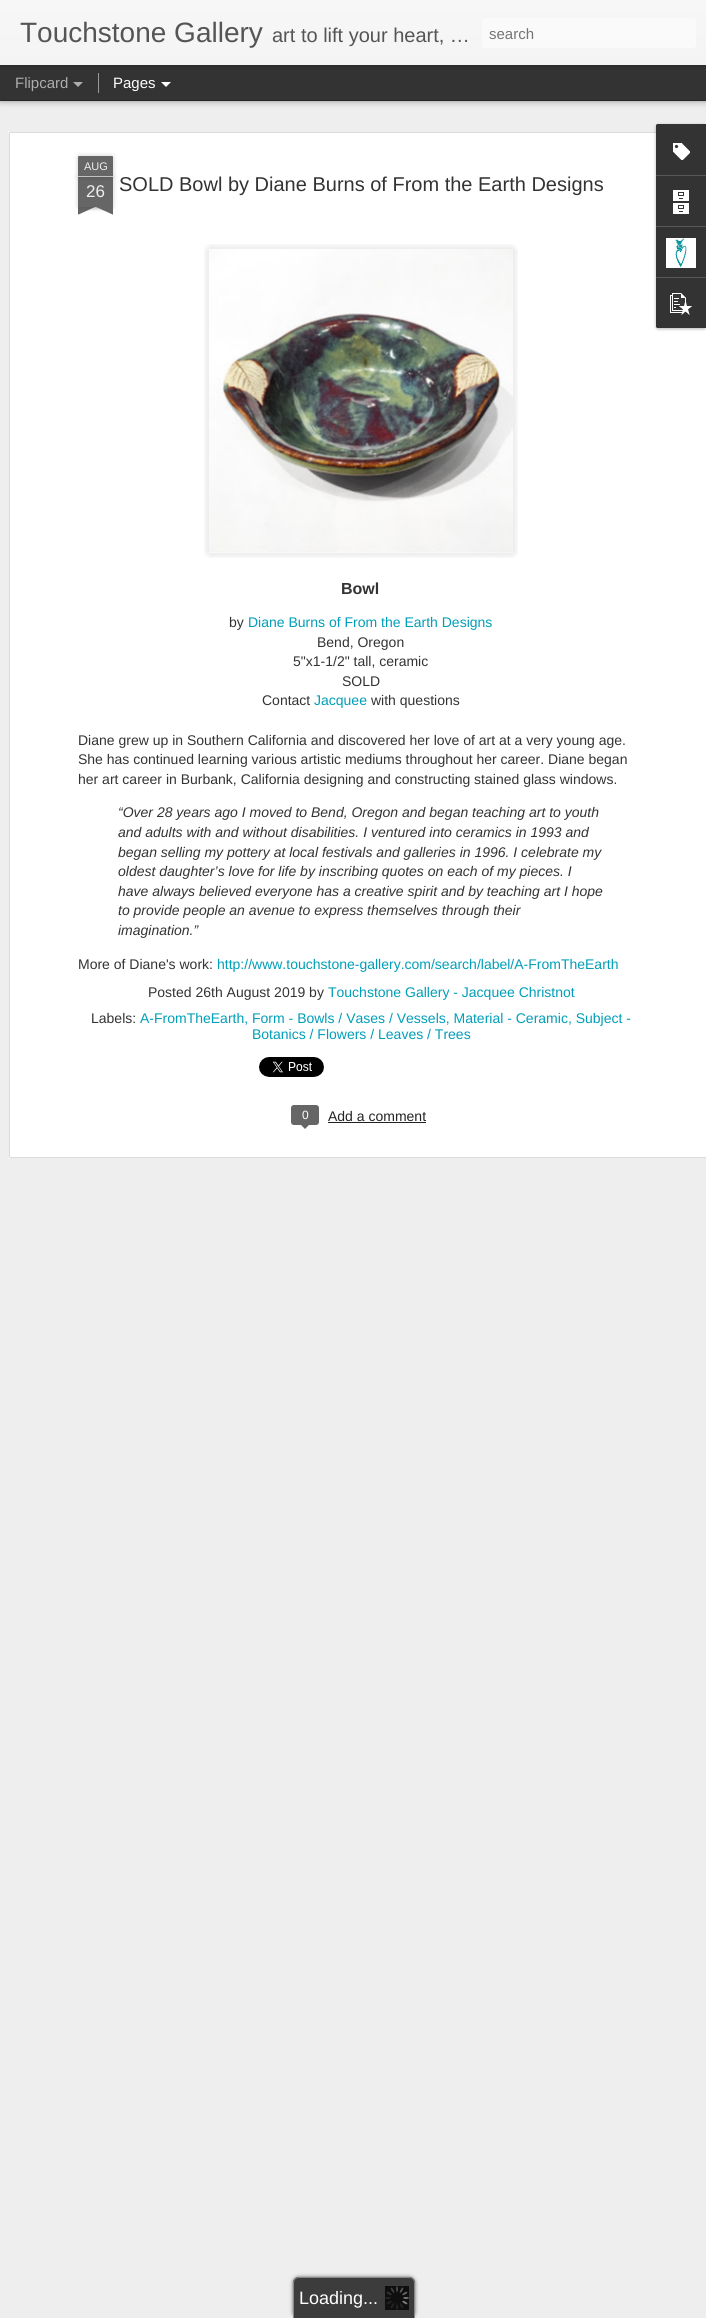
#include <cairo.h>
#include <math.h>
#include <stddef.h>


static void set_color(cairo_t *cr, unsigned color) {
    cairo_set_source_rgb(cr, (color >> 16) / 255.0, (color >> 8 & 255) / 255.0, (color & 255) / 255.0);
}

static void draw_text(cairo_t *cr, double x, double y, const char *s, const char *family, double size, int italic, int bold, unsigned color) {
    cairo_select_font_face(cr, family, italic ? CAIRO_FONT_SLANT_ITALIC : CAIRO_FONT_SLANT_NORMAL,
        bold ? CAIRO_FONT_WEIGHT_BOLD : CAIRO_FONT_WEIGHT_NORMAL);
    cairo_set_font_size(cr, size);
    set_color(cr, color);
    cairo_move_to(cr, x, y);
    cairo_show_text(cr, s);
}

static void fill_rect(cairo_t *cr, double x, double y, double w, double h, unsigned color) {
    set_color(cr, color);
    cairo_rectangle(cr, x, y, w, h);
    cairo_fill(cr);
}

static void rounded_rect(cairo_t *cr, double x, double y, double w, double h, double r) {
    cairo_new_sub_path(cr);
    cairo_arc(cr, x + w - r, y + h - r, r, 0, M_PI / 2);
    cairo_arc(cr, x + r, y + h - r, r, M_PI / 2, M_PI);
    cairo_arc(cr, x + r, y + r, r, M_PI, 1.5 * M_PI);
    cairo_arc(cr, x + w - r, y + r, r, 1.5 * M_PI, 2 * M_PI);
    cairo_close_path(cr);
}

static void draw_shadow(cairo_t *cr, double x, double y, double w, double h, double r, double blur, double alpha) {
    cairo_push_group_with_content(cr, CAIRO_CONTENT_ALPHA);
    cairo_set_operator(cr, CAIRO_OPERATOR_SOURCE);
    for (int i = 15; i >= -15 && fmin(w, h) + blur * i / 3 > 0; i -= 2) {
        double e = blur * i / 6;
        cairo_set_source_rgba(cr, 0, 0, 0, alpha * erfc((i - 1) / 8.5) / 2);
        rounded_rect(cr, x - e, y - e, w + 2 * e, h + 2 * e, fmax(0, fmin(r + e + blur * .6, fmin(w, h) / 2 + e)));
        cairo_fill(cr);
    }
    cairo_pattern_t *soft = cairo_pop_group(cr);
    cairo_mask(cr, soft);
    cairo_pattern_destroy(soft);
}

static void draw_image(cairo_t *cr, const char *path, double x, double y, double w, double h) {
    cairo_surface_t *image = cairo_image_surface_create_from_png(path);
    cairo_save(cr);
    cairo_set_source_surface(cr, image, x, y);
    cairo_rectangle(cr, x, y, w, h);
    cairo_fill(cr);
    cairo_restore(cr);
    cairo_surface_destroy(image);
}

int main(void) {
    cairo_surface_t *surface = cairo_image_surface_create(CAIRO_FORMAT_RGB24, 706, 2318);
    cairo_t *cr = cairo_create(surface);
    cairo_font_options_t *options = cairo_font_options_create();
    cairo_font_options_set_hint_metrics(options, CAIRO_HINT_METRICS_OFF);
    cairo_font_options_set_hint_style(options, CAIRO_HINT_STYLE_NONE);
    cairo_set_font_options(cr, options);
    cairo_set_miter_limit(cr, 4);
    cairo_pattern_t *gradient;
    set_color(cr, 0x333333);
    cairo_paint(cr);
    fill_rect(cr, 0, 101, 706, 2217, 0xEEEEEE);
    set_color(cr, 0x000000);
    draw_shadow(cr, 0, 65, 706, 35, 0, 4, 0.5);
    fill_rect(cr, 0, 65, 706, 35, 0x333333);
    fill_rect(cr, 98, 73, 1, 20, 0x999999);
    set_color(cr, 0x000000);
    draw_shadow(cr, 0, 0, 706, 65, 0, 2.5, 0.3);
    gradient = cairo_pattern_create_linear(0, 0, 0, 65);
    cairo_pattern_add_color_stop_rgba(gradient, 0, 0.969, 0.969, 0.969, 1);
    cairo_pattern_add_color_stop_rgba(gradient, 1, 0.957, 0.957, 0.957, 1);
    cairo_set_source(cr, gradient);
    cairo_pattern_destroy(gradient);
    cairo_rectangle(cr, 0, 0, 706, 65);
    cairo_fill(cr);
    draw_text(cr, 20, 42, "Touchstone Gallery", "Liberation Sans", 28, 0, 0, 0x555555);
    draw_text(cr, 272, 42, "art to lift your heart, …", "Liberation Sans", 20, 0, 0, 0x555555);
    set_color(cr, 0xFAFAFA);
    rounded_rect(cr, 482, 18, 214, 30, 3);
    cairo_fill(cr);
    draw_text(cr, 489, 39, "search", "Liberation Sans", 15, 0, 0, 0x757575);
    draw_text(cr, 15, 88, "Flipcard", "Liberation Sans", 15, 0, 0, 0xADADAD);
    cairo_new_path(cr);
    cairo_move_to(cr, 73, 82);
    cairo_line_to(cr, 83, 82);
    cairo_line_to(cr, 78, 87);
    cairo_close_path(cr);
    cairo_fill(cr);
    draw_text(cr, 113, 88, "Pages", "Liberation Sans", 15, 0, 0, 0xFFFFFF);
    cairo_new_path(cr);
    cairo_move_to(cr, 161, 82);
    cairo_line_to(cr, 171, 82);
    cairo_line_to(cr, 166, 87);
    cairo_close_path(cr);
    cairo_fill(cr);
    fill_rect(cr, 8, 131, 698, 1028, 0xFFFFFF);
    draw_image(cr, "assets/img1.png", 8, 131, 698, 1028);
    set_color(cr, 0x000000);
    draw_shadow(cr, 78, 177, 35, 30, 0, 2.5, 0.2);
    fill_rect(cr, 78, 177, 35, 30, 0x666666);
    set_color(cr, 0x000000);
    draw_shadow(cr, 78, 156, 35, 21, 1, 2.5, 0.2);
    set_color(cr, 0x666666);
    cairo_new_path(cr);
    cairo_move_to(cr, 79, 156);
    cairo_line_to(cr, 112, 156);
    cairo_curve_to(cr, 112.5, 156, 113, 156.5, 113, 157);
    cairo_line_to(cr, 113, 177);
    cairo_line_to(cr, 78, 177);
    cairo_line_to(cr, 78, 157);
    cairo_curve_to(cr, 78, 156.5, 78.5, 156, 79, 156);
    cairo_close_path(cr);
    cairo_fill(cr);
    fill_rect(cr, 78, 176, 35, 1, 0xC2C2C2);
    draw_text(cr, 84, 170, "AUG", "Liberation Sans", 11, 0, 0, 0xEEEEEE);
    draw_text(cr, 86, 197, "26", "Liberation Sans", 17, 0, 0, 0xEEEEEE);
    cairo_save(cr);
    cairo_rectangle(cr, 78, 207, 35, 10);
    cairo_clip(cr);
    set_color(cr, 0x000000);
    draw_shadow(cr, 69, 197, 50, 10, 0, 2.5, 0.2);
    cairo_restore(cr);
    cairo_save(cr);
    cairo_rectangle(cr, 78, 207, 35, 10);
    cairo_clip(cr);
    set_color(cr, 0x666666);
    cairo_new_path(cr);
    cairo_move_to(cr, 69, 208);
    cairo_line_to(cr, 115, 187);
    cairo_line_to(cr, 119, 196);
    cairo_line_to(cr, 73, 217);
    cairo_close_path(cr);
    cairo_fill(cr);
    cairo_restore(cr);
    cairo_save(cr);
    cairo_rectangle(cr, 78, 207, 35, 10);
    cairo_clip(cr);
    set_color(cr, 0x000000);
    draw_shadow(cr, 72, 197, 50, 10, 0, 2.5, 0.2);
    cairo_restore(cr);
    cairo_save(cr);
    cairo_rectangle(cr, 78, 207, 35, 10);
    cairo_clip(cr);
    set_color(cr, 0x666666);
    cairo_new_path(cr);
    cairo_move_to(cr, 76, 187);
    cairo_line_to(cr, 122, 208);
    cairo_line_to(cr, 118, 217);
    cairo_line_to(cr, 72, 196);
    cairo_close_path(cr);
    cairo_fill(cr);
    cairo_restore(cr);
    draw_text(cr, 119, 191, "SOLD Bowl by Diane Burns of From the Earth Designs", "Liberation Sans", 20, 0, 0, 0x333333);
    draw_image(cr, "assets/img2.png", 204, 244, 314, 314);
    draw_image(cr, "assets/img3.png", 208, 248, 306, 306);
    draw_text(cr, 341, 594, "Bowl", "Liberation Sans", 16, 0, 1, 0x333333);
    draw_text(cr, 229, 627, "by", "Liberation Sans", 14, 0, 0, 0x333333);
    draw_text(cr, 248, 627, "Diane Burns of From the Earth Designs", "Liberation Sans", 14, 0, 0, 0x009EB8);
    draw_text(cr, 317, 647, "Bend, Oregon", "Liberation Sans", 14, 0, 0, 0x333333);
    draw_text(cr, 293, 666, "5\"x1-1/2\" tall, ceramic", "Liberation Sans", 14, 0, 0, 0x333333);
    draw_text(cr, 342, 686, "SOLD", "Liberation Sans", 14, 0, 0, 0x333333);
    draw_text(cr, 262, 705, "Contact", "Liberation Sans", 14, 0, 0, 0x333333);
    draw_text(cr, 314, 705, "Jacquee", "Liberation Sans", 14, 0, 0, 0x009EB8);
    draw_text(cr, 371, 705, "with questions", "Liberation Sans", 14, 0, 0, 0x333333);
    draw_text(cr, 78, 745, "Diane grew up in Southern California and discovered her love of art at a very young age.", "Liberation Sans", 14, 0, 0, 0x333333);
    draw_text(cr, 78, 764, "She has continued learning various artistic mediums throughout her career. Diane began", "Liberation Sans", 14, 0, 0, 0x333333);
    draw_text(cr, 78, 784, "her art career in Burbank, California designing and constructing stained glass windows.", "Liberation Sans", 14, 0, 0, 0x333333);
    draw_text(cr, 118, 817, "“Over 28 years ago I moved to Bend, Oregon and began teaching art to youth", "Liberation Sans", 14, 1, 0, 0x333333);
    draw_text(cr, 118, 837, "and adults with and without disabilities. I ventured into ceramics in 1993 and", "Liberation Sans", 14, 1, 0, 0x333333);
    draw_text(cr, 118, 857, "began selling my pottery at local festivals and galleries in 1996. I celebrate my", "Liberation Sans", 14, 1, 0, 0x333333);
    draw_text(cr, 118, 876, "oldest daughter’s love for life by inscribing quotes on each of my pieces. I", "Liberation Sans", 14, 1, 0, 0x333333);
    draw_text(cr, 118, 896, "have always believed everyone has a creative spirit and by teaching art I hope", "Liberation Sans", 14, 1, 0, 0x333333);
    draw_text(cr, 118, 915, "to provide people an avenue to express themselves through their", "Liberation Sans", 14, 1, 0, 0x333333);
    draw_text(cr, 118, 935, "imagination.”", "Liberation Sans", 14, 1, 0, 0x333333);
    draw_text(cr, 78, 969, "More of Diane's work:", "Liberation Sans", 14, 0, 0, 0x333333);
    draw_text(cr, 217, 969, "http://www.touchstone-gallery.com/search/label/A-FromTheEarth", "Liberation Sans", 14, 0, 0, 0x009EB8);
    draw_text(cr, 148, 997, "Posted 26th August 2019 by", "Liberation Sans", 14, 0, 0, 0x333333);
    draw_text(cr, 328, 997, "Touchstone Gallery - Jacquee Christnot", "Liberation Sans", 14, 0, 0, 0x009EB8);
    draw_text(cr, 91, 1023, "Labels:", "Liberation Sans", 14, 0, 0, 0x333333);
    draw_text(cr, 140, 1023, "A-FromTheEarth, Form - Bowls / Vases / Vessels, Material - Ceramic, Subject -", "Liberation Sans", 14, 0, 0, 0x009EB8);
    draw_text(cr, 252, 1039, "Botanics / Flowers / Leaves / Trees", "Liberation Sans", 14, 0, 0, 0x009EB8);
    draw_image(cr, "assets/img4.png", 259, 1057, 65, 20);
    set_color(cr, 0x666666);
    rounded_rect(cr, 291.5, 1105.5, 27, 19, 2.5);
    cairo_fill_preserve(cr);
    cairo_set_line_width(cr, 1);
    cairo_stroke(cr);
    draw_text(cr, 302, 1119, "0", "Liberation Sans", 12, 0, 0, 0xFFFFFF);
    set_color(cr, 0x666666);
    cairo_new_path(cr);
    cairo_move_to(cr, 300, 1124);
    cairo_line_to(cr, 310, 1124);
    cairo_line_to(cr, 305, 1129);
    cairo_close_path(cr);
    cairo_fill(cr);
    draw_text(cr, 328, 1121, "Add a comment", "Liberation Sans", 14, 0, 0, 0x222222);
    fill_rect(cr, 328, 1122, 98, 1, 0x222222);
    set_color(cr, 0x000000);
    draw_shadow(cr, 656, 125, 50, 204, 2, 1.5, 0.3);
    set_color(cr, 0x333333);
    cairo_new_path(cr);
    cairo_move_to(cr, 658, 124);
    cairo_line_to(cr, 706, 124);
    cairo_line_to(cr, 706, 328);
    cairo_line_to(cr, 658, 328);
    cairo_curve_to(cr, 657, 328, 656, 327, 656, 326);
    cairo_line_to(cr, 656, 126);
    cairo_curve_to(cr, 656, 125, 657, 124, 658, 124);
    cairo_close_path(cr);
    cairo_fill(cr);
    cairo_new_path(cr);
    cairo_move_to(cr, 658, 124);
    cairo_line_to(cr, 706, 124);
    cairo_line_to(cr, 706, 175);
    cairo_line_to(cr, 656, 175);
    cairo_line_to(cr, 656, 126);
    cairo_curve_to(cr, 656, 125, 657, 124, 658, 124);
    cairo_close_path(cr);
    cairo_fill(cr);
    draw_image(cr, "assets/img5.png", 673, 143, 17, 17);
    fill_rect(cr, 656, 175, 50, 1, 0x585858);
    draw_image(cr, "assets/img6.png", 673, 190, 16, 24);
    fill_rect(cr, 656, 226, 50, 1, 0x585858);
    draw_image(cr, "assets/img7.png", 666, 238, 30, 30);
    set_color(cr, 0x333333);
    cairo_new_path(cr);
    cairo_move_to(cr, 656, 277);
    cairo_line_to(cr, 706, 277);
    cairo_line_to(cr, 706, 328);
    cairo_line_to(cr, 658, 328);
    cairo_curve_to(cr, 657, 328, 656, 327, 656, 326);
    cairo_close_path(cr);
    cairo_fill(cr);
    fill_rect(cr, 656, 277, 50, 1, 0x585858);
    draw_image(cr, "assets/img8.png", 670, 293, 22, 22);
    set_color(cr, 0x626262);
    draw_shadow(cr, 293, 2277, 122, 41, 6, 2, 1);
    set_color(cr, 0x3C3C3C);
    cairo_new_path(cr);
    cairo_move_to(cr, 299, 2277);
    cairo_line_to(cr, 409, 2277);
    cairo_curve_to(cr, 412.5, 2277, 415, 2279.5, 415, 2283);
    cairo_line_to(cr, 415, 2318);
    cairo_line_to(cr, 293, 2318);
    cairo_line_to(cr, 293, 2283);
    cairo_curve_to(cr, 293, 2279.5, 295.5, 2277, 299, 2277);
    cairo_close_path(cr);
    cairo_fill(cr);
    set_color(cr, 0x888888);
    cairo_set_fill_rule(cr, CAIRO_FILL_RULE_EVEN_ODD);
    cairo_new_path(cr);
    cairo_move_to(cr, 299, 2277);
    cairo_line_to(cr, 409, 2277);
    cairo_curve_to(cr, 412, 2277, 415, 2280, 415, 2283);
    cairo_line_to(cr, 415, 2318);
    cairo_line_to(cr, 293, 2318);
    cairo_line_to(cr, 293, 2283);
    cairo_curve_to(cr, 293, 2280, 296, 2277, 299, 2277);
    cairo_close_path(cr);
    cairo_move_to(cr, 299, 2278);
    cairo_line_to(cr, 409, 2278);
    cairo_curve_to(cr, 412, 2278, 414, 2280, 414, 2283);
    cairo_line_to(cr, 414, 2318);
    cairo_line_to(cr, 294, 2318);
    cairo_line_to(cr, 294, 2283);
    cairo_curve_to(cr, 294, 2280, 296, 2278, 299, 2278);
    cairo_close_path(cr);
    cairo_fill(cr);
    draw_image(cr, "assets/img9.png", 385, 2286, 24, 24);
    draw_text(cr, 299, 2304, "Loading...", "Liberation Sans", 18, 0, 0, 0xFFFFFF);
    cairo_surface_write_to_png(surface, "output.png");
    cairo_font_options_destroy(options);
    cairo_destroy(cr);
    cairo_surface_destroy(surface);
    return 0;
}
